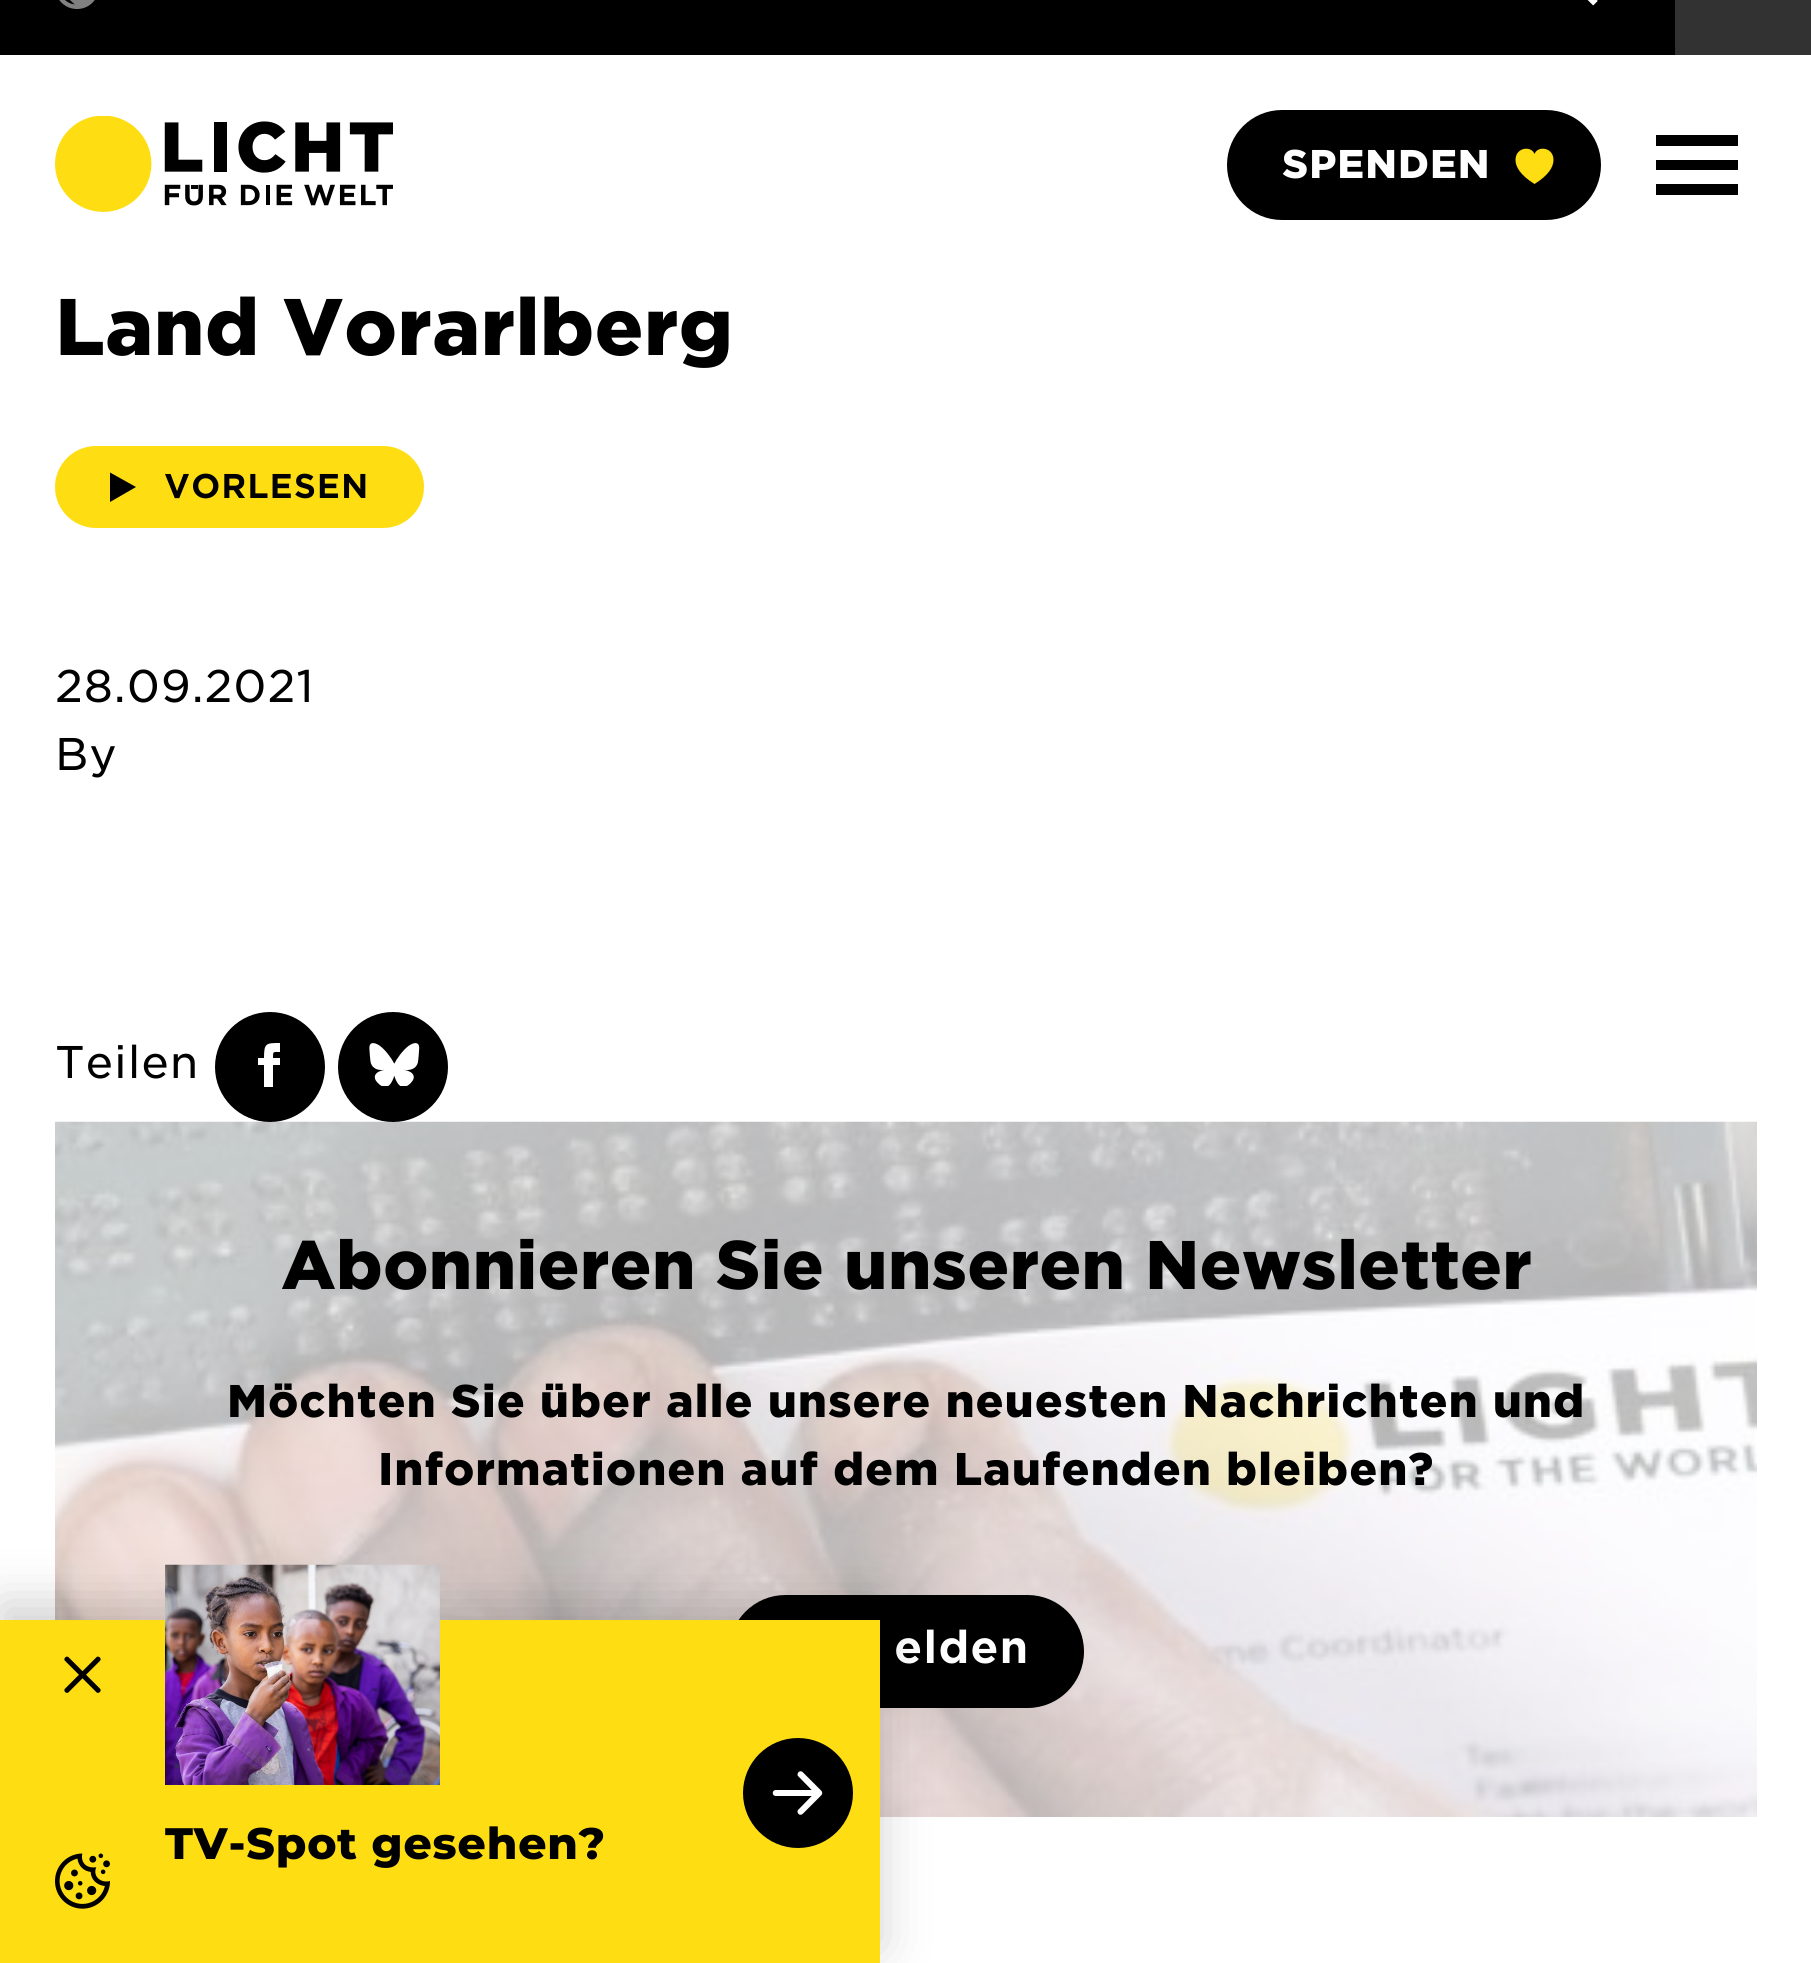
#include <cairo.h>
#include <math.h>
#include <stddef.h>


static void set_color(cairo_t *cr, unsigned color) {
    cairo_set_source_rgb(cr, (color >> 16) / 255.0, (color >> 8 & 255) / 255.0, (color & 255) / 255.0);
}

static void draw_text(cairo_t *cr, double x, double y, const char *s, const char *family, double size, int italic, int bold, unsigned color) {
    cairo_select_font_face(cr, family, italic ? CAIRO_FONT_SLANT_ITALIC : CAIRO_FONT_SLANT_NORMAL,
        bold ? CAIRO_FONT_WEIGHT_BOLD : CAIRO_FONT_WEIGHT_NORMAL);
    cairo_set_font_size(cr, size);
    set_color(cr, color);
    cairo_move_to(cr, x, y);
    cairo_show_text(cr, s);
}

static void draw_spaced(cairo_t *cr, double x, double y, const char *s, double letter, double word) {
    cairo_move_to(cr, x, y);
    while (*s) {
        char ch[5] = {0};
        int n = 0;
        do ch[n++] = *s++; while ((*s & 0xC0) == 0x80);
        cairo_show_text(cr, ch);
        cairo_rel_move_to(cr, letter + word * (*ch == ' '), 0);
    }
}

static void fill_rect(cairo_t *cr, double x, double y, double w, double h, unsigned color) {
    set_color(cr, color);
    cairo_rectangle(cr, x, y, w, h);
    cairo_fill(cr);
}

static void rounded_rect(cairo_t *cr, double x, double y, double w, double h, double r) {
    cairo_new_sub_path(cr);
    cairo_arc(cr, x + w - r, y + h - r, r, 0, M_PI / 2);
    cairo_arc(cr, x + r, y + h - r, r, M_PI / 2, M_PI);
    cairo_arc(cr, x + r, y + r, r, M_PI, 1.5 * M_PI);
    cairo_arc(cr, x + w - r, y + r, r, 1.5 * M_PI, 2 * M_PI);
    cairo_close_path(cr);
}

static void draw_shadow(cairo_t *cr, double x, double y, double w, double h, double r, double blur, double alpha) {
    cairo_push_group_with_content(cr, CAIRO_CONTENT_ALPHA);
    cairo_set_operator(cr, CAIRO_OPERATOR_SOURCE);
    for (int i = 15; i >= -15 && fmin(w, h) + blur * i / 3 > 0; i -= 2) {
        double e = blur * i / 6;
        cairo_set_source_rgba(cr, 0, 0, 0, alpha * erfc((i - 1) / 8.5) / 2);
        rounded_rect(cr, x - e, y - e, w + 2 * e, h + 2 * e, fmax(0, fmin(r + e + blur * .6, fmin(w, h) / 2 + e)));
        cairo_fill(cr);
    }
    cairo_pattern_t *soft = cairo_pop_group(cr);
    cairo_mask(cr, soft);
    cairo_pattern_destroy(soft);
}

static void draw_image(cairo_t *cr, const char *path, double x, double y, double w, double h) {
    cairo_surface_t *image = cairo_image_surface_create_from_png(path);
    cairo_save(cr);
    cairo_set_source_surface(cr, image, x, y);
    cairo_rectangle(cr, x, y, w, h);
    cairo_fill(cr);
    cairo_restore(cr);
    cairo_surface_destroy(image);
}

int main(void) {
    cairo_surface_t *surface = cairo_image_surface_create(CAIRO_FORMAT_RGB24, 1811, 1963);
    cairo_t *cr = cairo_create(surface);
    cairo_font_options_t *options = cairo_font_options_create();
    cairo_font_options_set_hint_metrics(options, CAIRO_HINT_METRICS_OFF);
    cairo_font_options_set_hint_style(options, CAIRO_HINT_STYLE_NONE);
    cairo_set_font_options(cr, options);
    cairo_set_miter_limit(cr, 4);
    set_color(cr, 0xFFFFFF);
    cairo_paint(cr);
    fill_rect(cr, 0, 0, 1675, 55, 0x000000);
    draw_image(cr, "assets/img1.png", 59, 0, 36, 9);
    draw_image(cr, "assets/img2.png", 1587, 0, 11, 6);
    fill_rect(cr, 1675, 0, 136, 55, 0x323232);
    draw_image(cr, "assets/img3.png", 55, 116, 338, 96);
    set_color(cr, 0x000000);
    rounded_rect(cr, 1227, 110, 374, 110, 55);
    cairo_fill(cr);
    cairo_select_font_face(cr, "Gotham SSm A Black", CAIRO_FONT_SLANT_NORMAL, CAIRO_FONT_WEIGHT_NORMAL);
    cairo_set_font_size(cr, 38.5);
    set_color(cr, 0xFFFFFF);
    draw_spaced(cr, 1282, 178, "SPENDEN", 0.88, 0);
    set_color(cr, 0xFFDD13);
    cairo_new_path(cr);
    cairo_move_to(cr, 1534.5, 154);
    cairo_curve_to(cr, 1531.5, 145.5, 1515.5, 147, 1515.5, 160);
    cairo_curve_to(cr, 1515.5, 166.5, 1520, 175, 1534.5, 184);
    cairo_curve_to(cr, 1549, 175, 1553.5, 166.5, 1553.5, 160);
    cairo_curve_to(cr, 1553.5, 147, 1537.5, 145.5, 1534.5, 154);
    cairo_close_path(cr);
    cairo_fill(cr);
    set_color(cr, 0x000000);
    cairo_new_path(cr);
    cairo_move_to(cr, 1738, 146);
    cairo_line_to(cr, 1656, 146);
    cairo_line_to(cr, 1656, 135);
    cairo_line_to(cr, 1738, 135);
    cairo_close_path(cr);
    cairo_move_to(cr, 1738, 160);
    cairo_line_to(cr, 1656, 160);
    cairo_line_to(cr, 1656, 170);
    cairo_line_to(cr, 1738, 170);
    cairo_close_path(cr);
    cairo_move_to(cr, 1738, 184);
    cairo_line_to(cr, 1656, 184);
    cairo_line_to(cr, 1656, 195);
    cairo_line_to(cr, 1738, 195);
    cairo_close_path(cr);
    cairo_fill(cr);
    draw_text(cr, 55, 355, "Land Vorarlberg", "Gotham SSm A Black", 77, 0, 0, 0x000000);
    set_color(cr, 0xFFDD13);
    rounded_rect(cr, 55, 446, 369, 82, 41);
    cairo_fill(cr);
    set_color(cr, 0x000000);
    cairo_new_path(cr);
    cairo_move_to(cr, 136, 487);
    cairo_line_to(cr, 110, 502);
    cairo_line_to(cr, 110, 472.5);
    cairo_close_path(cr);
    cairo_fill(cr);
    cairo_select_font_face(cr, "Gotham SSm A", CAIRO_FONT_SLANT_NORMAL, CAIRO_FONT_WEIGHT_BOLD);
    cairo_set_font_size(cr, 33);
    draw_spaced(cr, 164, 498, "VORLESEN", 0.88, 0);
    cairo_select_font_face(cr, "Gotham SSm A", CAIRO_FONT_SLANT_NORMAL, CAIRO_FONT_WEIGHT_NORMAL);
    cairo_set_font_size(cr, 44);
    draw_spaced(cr, 55, 702, "28.09.2021", 0.88, 0);
    draw_spaced(cr, 55, 770, "By", 0.88, 0);
    draw_spaced(cr, 55, 1078, "Teilen", 0.88, 0);
    draw_image(cr, "assets/img5.png", 55, 1121, 1702, 696);
    cairo_arc(cr, 270, 1067, 55, 0, 2 * M_PI);
    cairo_fill(cr);
    set_color(cr, 0xFFFFFF);
    cairo_new_path(cr);
    cairo_move_to(cr, 264, 1058);
    cairo_curve_to(cr, 264, 1043, 266, 1043, 280, 1043);
    cairo_line_to(cr, 280, 1052);
    cairo_curve_to(cr, 273, 1052, 273, 1051, 273, 1058);
    cairo_line_to(cr, 280, 1058);
    cairo_line_to(cr, 280, 1065);
    cairo_line_to(cr, 273, 1065);
    cairo_line_to(cr, 273, 1087);
    cairo_line_to(cr, 264, 1087);
    cairo_line_to(cr, 264, 1065);
    cairo_line_to(cr, 258, 1065);
    cairo_line_to(cr, 258, 1058);
    cairo_close_path(cr);
    cairo_fill(cr);
    set_color(cr, 0x000000);
    cairo_arc(cr, 393, 1067, 55, 0, 2 * M_PI);
    cairo_fill(cr);
    draw_image(cr, "assets/img4.png", 369, 1043, 51, 43);
    draw_text(cr, 281, 1289, "Abonnieren Sie unseren Newsletter", "Gotham SSm A Black", 66, 0, 0, 0x000000);
    cairo_set_font_size(cr, 44);
    draw_spaced(cr, 227, 1417, "Möchten Sie über alle unsere neuesten Nachrichten und", 0.88, 0);
    draw_spaced(cr, 378, 1485, "Informationen auf dem Laufenden bleiben?", 0.88, 0);
    rounded_rect(cr, 729, 1595, 355, 113, 56.5);
    cairo_fill(cr);
    cairo_select_font_face(cr, "Gotham SSm A", CAIRO_FONT_SLANT_NORMAL, CAIRO_FONT_WEIGHT_BOLD);
    set_color(cr, 0xFFFFFF);
    draw_spaced(cr, 894, 1663, "elden", 0.88, 0);
    set_color(cr, 0x000000);
    draw_shadow(cr, 0, 1603, 880, 344, 0, 25, 0.18);
    fill_rect(cr, 0, 1620, 880, 343, 0xFFDD13);
    draw_image(cr, "assets/img6.png", 55, 1853, 55, 56);
    draw_image(cr, "assets/img7.png", 64, 1656, 37, 37);
    draw_image(cr, "assets/img8.png", 165, 1564, 275, 221);
    cairo_select_font_face(cr, "Montserrat ExtraBold", CAIRO_FONT_SLANT_NORMAL, CAIRO_FONT_WEIGHT_NORMAL);
    set_color(cr, 0x000000);
    draw_spaced(cr, 165, 1859, "TV-Spot gesehen?", 0.88, 0);
    cairo_new_path(cr);
    cairo_arc(cr, 798, 1793, 55, 0, 2 * M_PI);
    cairo_fill(cr);
    draw_image(cr, "assets/img9.png", 772, 1771, 51, 44);
    cairo_surface_write_to_png(surface, "output.png");
    cairo_font_options_destroy(options);
    cairo_destroy(cr);
    cairo_surface_destroy(surface);
    return 0;
}
